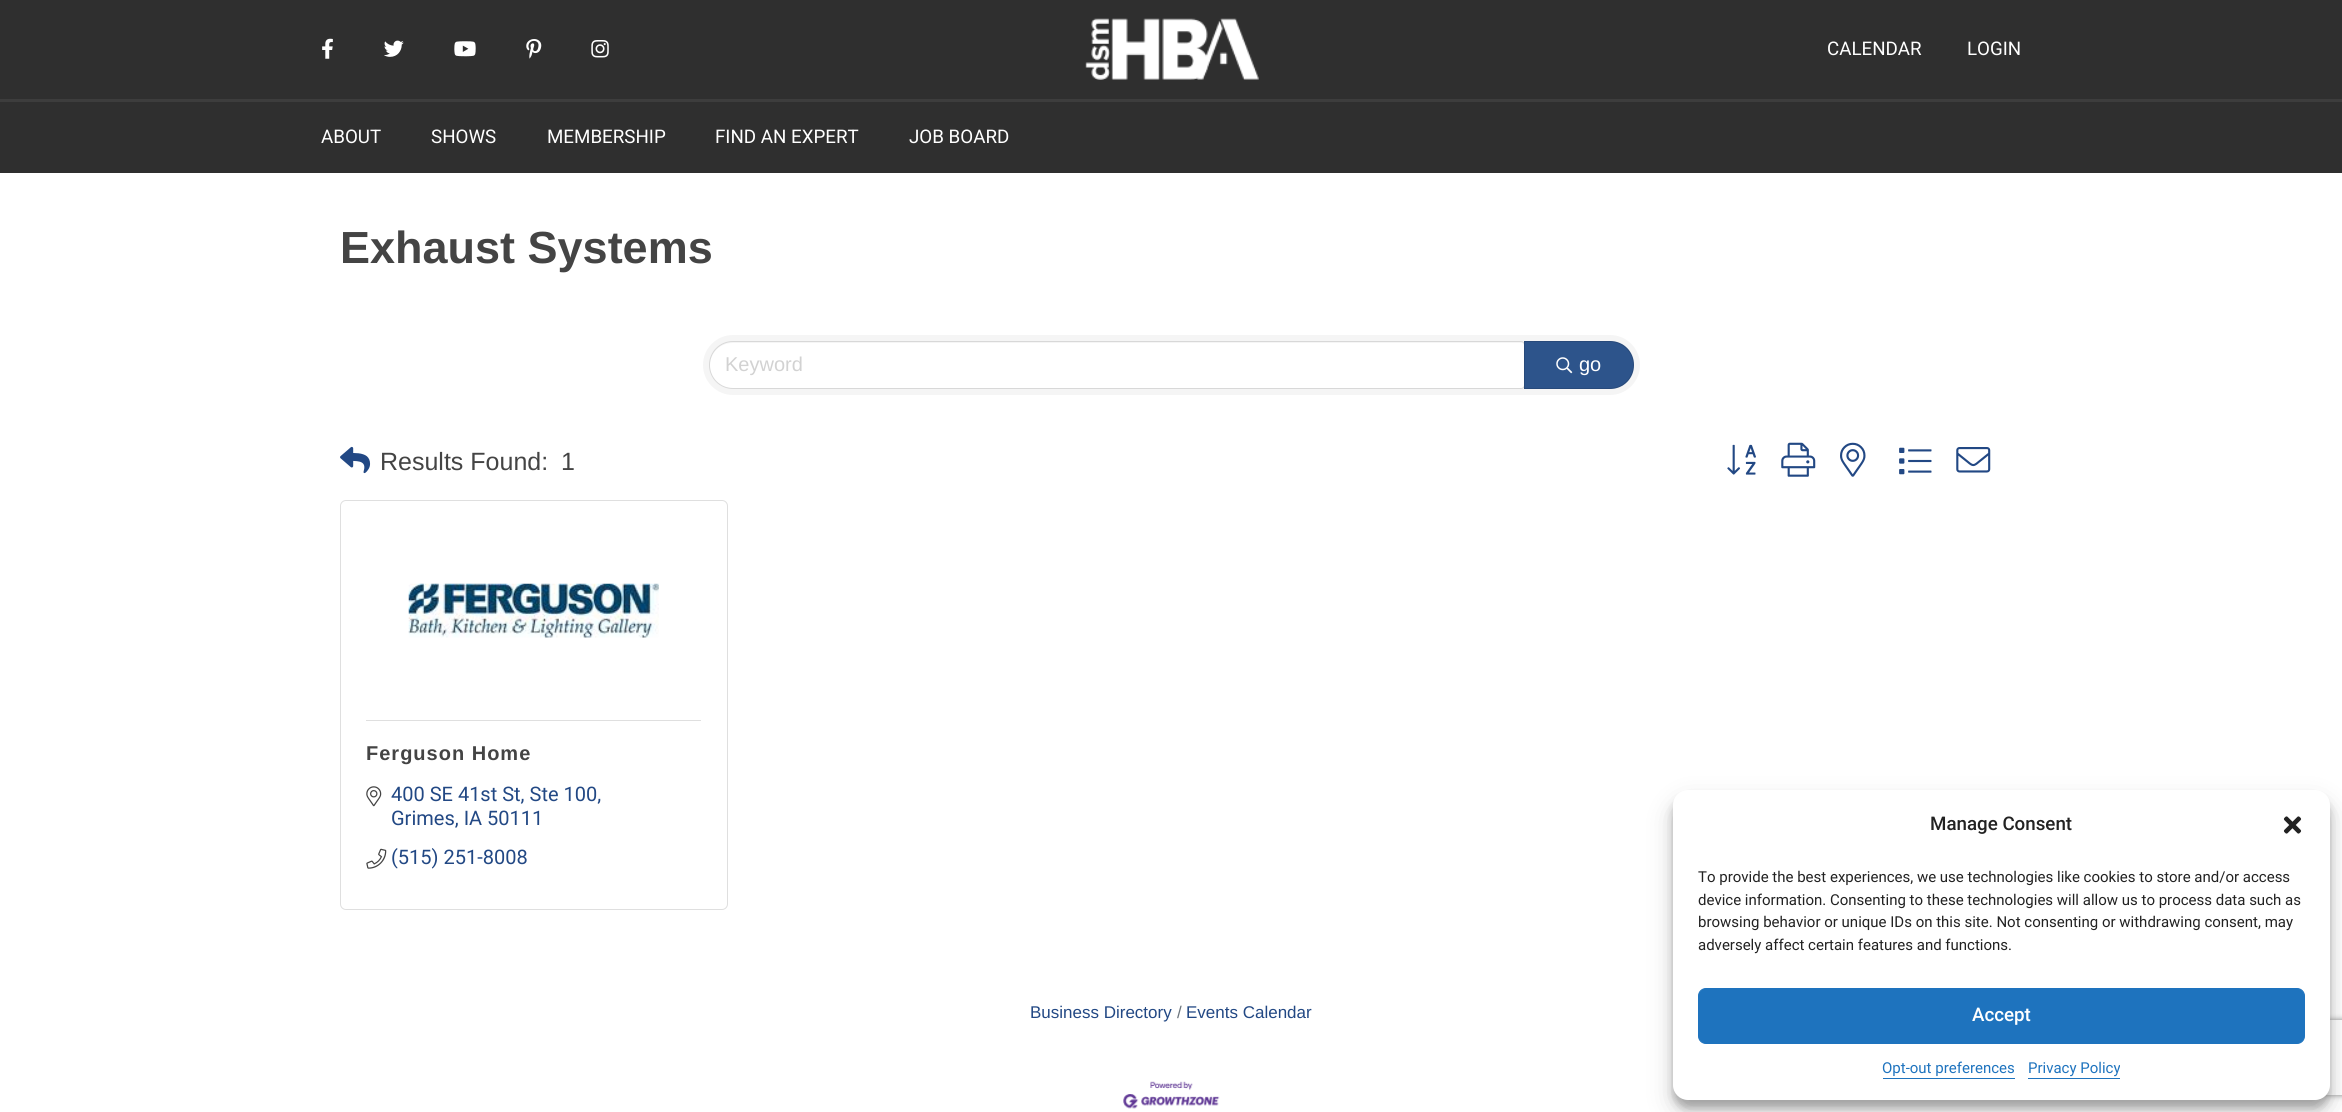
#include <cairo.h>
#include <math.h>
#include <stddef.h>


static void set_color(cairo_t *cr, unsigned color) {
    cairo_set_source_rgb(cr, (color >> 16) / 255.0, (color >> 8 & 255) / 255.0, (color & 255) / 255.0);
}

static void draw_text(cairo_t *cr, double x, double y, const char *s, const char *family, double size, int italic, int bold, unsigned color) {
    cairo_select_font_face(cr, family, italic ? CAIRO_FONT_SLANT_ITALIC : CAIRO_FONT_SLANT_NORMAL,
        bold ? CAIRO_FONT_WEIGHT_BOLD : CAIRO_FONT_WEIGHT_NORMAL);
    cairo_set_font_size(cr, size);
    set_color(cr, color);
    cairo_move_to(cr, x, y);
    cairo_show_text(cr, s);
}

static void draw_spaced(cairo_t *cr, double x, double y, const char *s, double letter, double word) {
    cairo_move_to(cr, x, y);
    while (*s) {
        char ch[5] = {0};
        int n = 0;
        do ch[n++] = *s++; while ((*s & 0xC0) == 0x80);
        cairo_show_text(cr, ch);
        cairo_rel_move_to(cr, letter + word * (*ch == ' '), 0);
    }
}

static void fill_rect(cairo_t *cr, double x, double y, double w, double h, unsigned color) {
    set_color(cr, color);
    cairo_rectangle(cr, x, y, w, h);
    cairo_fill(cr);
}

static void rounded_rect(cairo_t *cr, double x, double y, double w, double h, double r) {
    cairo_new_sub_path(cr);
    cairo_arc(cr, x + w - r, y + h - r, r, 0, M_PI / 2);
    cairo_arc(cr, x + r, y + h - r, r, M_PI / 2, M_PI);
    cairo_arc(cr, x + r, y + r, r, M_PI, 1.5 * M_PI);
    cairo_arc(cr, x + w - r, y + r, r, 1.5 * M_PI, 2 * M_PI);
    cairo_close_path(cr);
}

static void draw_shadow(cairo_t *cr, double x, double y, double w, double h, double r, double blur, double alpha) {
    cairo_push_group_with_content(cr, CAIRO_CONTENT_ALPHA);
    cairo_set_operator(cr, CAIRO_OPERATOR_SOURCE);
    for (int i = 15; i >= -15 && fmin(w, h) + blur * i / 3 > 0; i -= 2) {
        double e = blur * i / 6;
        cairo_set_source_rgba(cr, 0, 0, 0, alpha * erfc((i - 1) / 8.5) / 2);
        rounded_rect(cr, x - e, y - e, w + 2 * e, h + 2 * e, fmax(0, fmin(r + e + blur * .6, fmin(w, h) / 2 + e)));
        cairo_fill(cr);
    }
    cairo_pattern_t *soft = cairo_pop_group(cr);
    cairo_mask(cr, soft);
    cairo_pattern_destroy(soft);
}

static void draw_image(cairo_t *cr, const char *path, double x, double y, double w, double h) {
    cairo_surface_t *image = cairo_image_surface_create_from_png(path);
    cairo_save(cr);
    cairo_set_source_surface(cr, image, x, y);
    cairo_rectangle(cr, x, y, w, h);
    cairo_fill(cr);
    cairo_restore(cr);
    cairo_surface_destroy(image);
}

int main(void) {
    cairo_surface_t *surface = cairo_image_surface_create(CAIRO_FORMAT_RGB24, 2342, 1112);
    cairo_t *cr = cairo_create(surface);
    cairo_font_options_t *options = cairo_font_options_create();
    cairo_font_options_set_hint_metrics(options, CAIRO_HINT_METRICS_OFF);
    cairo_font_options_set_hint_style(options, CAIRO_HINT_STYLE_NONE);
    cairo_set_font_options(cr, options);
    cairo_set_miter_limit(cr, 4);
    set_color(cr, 0xFFFFFF);
    cairo_paint(cr);
    fill_rect(cr, 0, 0, 2342, 173, 0x2F2F2F);
    draw_image(cr, "assets/img1.png", 322, 38, 11, 21);
    draw_image(cr, "assets/img2.png", 384, 40, 20, 17);
    draw_image(cr, "assets/img3.png", 454, 41, 22, 16);
    draw_image(cr, "assets/img4.png", 526, 39, 16, 20);
    draw_image(cr, "assets/img5.png", 591, 40, 18, 18);
    draw_image(cr, "assets/img6.png", 1085, 18, 174, 62);
    draw_text(cr, 1827, 55, "CALENDAR", "Roboto", 18.75, 0, 0, 0xFFFFFF);
    draw_text(cr, 1967, 55, "LOGIN", "Roboto", 18.75, 0, 0, 0xFFFFFF);
    fill_rect(cr, 0, 99, 2342, 3, 0x3D3D3D);
    draw_text(cr, 321, 143, "ABOUT", "Roboto", 18.75, 0, 0, 0xFFFFFF);
    draw_text(cr, 431, 143, "SHOWS", "Roboto", 18.75, 0, 0, 0xFFFFFF);
    draw_text(cr, 547, 143, "MEMBERSHIP", "Roboto", 18.75, 0, 0, 0xFFFFFF);
    draw_text(cr, 715, 143, "FIND AN EXPERT", "Roboto", 18.75, 0, 0, 0xFFFFFF);
    draw_text(cr, 909, 143, "JOB BOARD", "Roboto", 18.75, 0, 0, 0xFFFFFF);
    draw_text(cr, 340, 263, "Exhaust Systems", "Liberation Sans", 45, 0, 1, 0x444444);
    set_color(cr, 0xF5F5F5);
    rounded_rect(cr, 703, 335, 937, 60, 30);
    cairo_fill(cr);
    set_color(cr, 0xFFFFFF);
    cairo_new_path(cr);
    cairo_move_to(cr, 732.5, 343);
    cairo_line_to(cr, 1521.5, 343);
    cairo_curve_to(cr, 1523, 343, 1524, 344, 1524, 345.5);
    cairo_line_to(cr, 1524, 385.5);
    cairo_curve_to(cr, 1524, 387, 1523, 388, 1521.5, 388);
    cairo_line_to(cr, 732.5, 388);
    cairo_curve_to(cr, 720, 388, 710, 378, 710, 365.5);
    cairo_curve_to(cr, 710, 353, 720, 343, 732.5, 343);
    cairo_close_path(cr);
    cairo_fill(cr);
    cairo_new_path(cr);
    cairo_move_to(cr, 733, 341.5);
    cairo_line_to(cr, 1521, 341.5);
    cairo_curve_to(cr, 1523, 341.5, 1524.5, 343, 1524.5, 345);
    cairo_line_to(cr, 1524.5, 385);
    cairo_curve_to(cr, 1524.5, 387, 1523, 388.5, 1521, 388.5);
    cairo_line_to(cr, 733, 388.5);
    cairo_curve_to(cr, 720, 388.5, 709.5, 378, 709.5, 365);
    cairo_curve_to(cr, 709.5, 352, 720, 341.5, 733, 341.5);
    cairo_close_path(cr);
    cairo_set_source_rgba(cr, 0, 0, 0, 0.12);
    cairo_set_line_width(cr, 1);
    cairo_stroke(cr);
    draw_text(cr, 725, 371, "Keyword", "Liberation Sans", 20, 0, 0, 0xD2D2D2);
    set_color(cr, 0x2D548B);
    cairo_new_path(cr);
    cairo_move_to(cr, 1524, 341);
    cairo_line_to(cr, 1610, 341);
    cairo_curve_to(cr, 1623.5, 341, 1634, 351.5, 1634, 365);
    cairo_curve_to(cr, 1634, 378.5, 1623.5, 389, 1610, 389);
    cairo_line_to(cr, 1524, 389);
    cairo_close_path(cr);
    cairo_fill(cr);
    cairo_new_path(cr);
    cairo_move_to(cr, 1524.5, 341.5);
    cairo_line_to(cr, 1610, 341.5);
    cairo_curve_to(cr, 1623, 341.5, 1633.5, 352, 1633.5, 365);
    cairo_curve_to(cr, 1633.5, 378, 1623, 388.5, 1610, 388.5);
    cairo_line_to(cr, 1524.5, 388.5);
    cairo_close_path(cr);
    cairo_set_source_rgba(cr, 0, 0, 0, 0.12);
    cairo_stroke(cr);
    draw_image(cr, "assets/img7.png", 1556, 357, 17, 17);
    draw_text(cr, 1579, 371, "go", "Liberation Sans", 20, 0, 0, 0xFFFFFF);
    draw_image(cr, "assets/img8.png", 340, 446, 31, 28);
    draw_text(cr, 380, 470, "Results Found:", "Liberation Sans", 25, 0, 0, 0x444444);
    draw_text(cr, 561, 470, "1", "Liberation Sans", 25, 0, 0, 0x444444);
    draw_image(cr, "assets/img9.png", 1727, 444, 29, 31);
    draw_image(cr, "assets/img10.png", 1781, 442, 35, 35);
    draw_image(cr, "assets/img11.png", 1840, 442, 26, 35);
    draw_image(cr, "assets/img12.png", 1899, 447, 33, 28);
    draw_image(cr, "assets/img13.png", 1956, 447, 35, 26);
    rounded_rect(cr, 340.5, 500.5, 387, 409, 5.5);
    set_color(cr, 0xDFDFDF);
    cairo_stroke(cr);
    draw_image(cr, "assets/img14.png", 408, 583, 251, 55);
    fill_rect(cr, 366, 720, 335, 1, 0xDFDFDF);
    cairo_select_font_face(cr, "Liberation Sans", CAIRO_FONT_SLANT_NORMAL, CAIRO_FONT_WEIGHT_BOLD);
    cairo_set_font_size(cr, 20);
    set_color(cr, 0x444444);
    draw_spaced(cr, 366, 760, "Ferguson Home", 1, 0);
    draw_image(cr, "assets/img15.png", 366, 786, 16, 21);
    draw_text(cr, 391, 801, "400 SE 41st St, Ste 100,", "Roboto", 20, 0, 0, 0x224884);
    draw_text(cr, 391, 825, "Grimes, IA 50111", "Roboto", 20, 0, 0, 0x224884);
    draw_image(cr, "assets/img16.png", 366, 848, 21, 21);
    draw_text(cr, 391, 864, "(515) 251-8008", "Roboto", 20, 0, 0, 0x224884);
    draw_text(cr, 1030, 1018, "Business Directory", "Liberation Sans", 17, 0, 0, 0x224884);
    draw_text(cr, 1177, 1018, "/", "Liberation Sans", 17, 0, 0, 0x6C757D);
    draw_text(cr, 1186, 1018, "Events Calendar", "Liberation Sans", 17, 0, 0, 0x224884);
    draw_image(cr, "assets/img17.png", 1123, 1081, 97, 28);
    set_color(cr, 0x000000);
    draw_shadow(cr, 1673, 798, 657, 310, 15, 4, 0.23);
    draw_shadow(cr, 1673, 803, 657, 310, 15, 12.5, 0.19);
    cairo_save(cr);
    cairo_set_fill_rule(cr, CAIRO_FILL_RULE_EVEN_ODD);
    cairo_new_path(cr);
    cairo_move_to(cr, 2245, 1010);
    cairo_line_to(cr, 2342, 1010);
    cairo_line_to(cr, 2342, 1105);
    cairo_line_to(cr, 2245, 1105);
    cairo_close_path(cr);
    cairo_move_to(cr, 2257.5, 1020);
    cairo_line_to(cr, 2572.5, 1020);
    cairo_curve_to(cr, 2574, 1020, 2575, 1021, 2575, 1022.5);
    cairo_line_to(cr, 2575, 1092.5);
    cairo_curve_to(cr, 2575, 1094, 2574, 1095, 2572.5, 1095);
    cairo_line_to(cr, 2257.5, 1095);
    cairo_curve_to(cr, 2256, 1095, 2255, 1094, 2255, 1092.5);
    cairo_line_to(cr, 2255, 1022.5);
    cairo_curve_to(cr, 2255, 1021, 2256, 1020, 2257.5, 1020);
    cairo_close_path(cr);
    cairo_clip(cr);
    set_color(cr, 0x808080);
    draw_shadow(cr, 2255, 1020, 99, 75, 2.5, 3, 1);
    cairo_restore(cr);
    set_color(cr, 0xFFFFFF);
    rounded_rect(cr, 1673, 790, 657, 310, 15);
    cairo_fill(cr);
    draw_text(cr, 1930, 830, "Manage Consent", "Roboto Medium", 18.75, 0, 0, 0x222222);
    draw_image(cr, "assets/img18.png", 2283, 816, 19, 18);
    draw_text(cr, 1698, 882, "To provide the best experiences, we use technologies like cookies to store and/or access", "Roboto", 15, 0, 0, 0x222222);
    draw_text(cr, 1698, 905, "device information. Consenting to these technologies will allow us to process data such as", "Roboto", 15, 0, 0, 0x222222);
    draw_text(cr, 1698, 927, "browsing behavior or unique IDs on this site. Not consenting or withdrawing consent, may", "Roboto", 15, 0, 0, 0x222222);
    draw_text(cr, 1698, 950, "adversely affect certain features and functions.", "Roboto", 15, 0, 0, 0x222222);
    set_color(cr, 0x1E73BE);
    rounded_rect(cr, 1698.5, 988.5, 606, 55, 7.5);
    cairo_fill_preserve(cr);
    cairo_stroke(cr);
    draw_text(cr, 1972, 1021, "Accept", "Roboto Medium", 18.75, 0, 0, 0xFFFFFF);
    draw_text(cr, 1882, 1073, "Opt-out preferences", "Roboto", 15, 0, 0, 0x1E73BE);
    fill_rect(cr, 1883, 1078, 132, 1, 0x1E73BE);
    draw_text(cr, 2028, 1073, "Privacy Policy", "Roboto", 15, 0, 0, 0x1E73BE);
    fill_rect(cr, 2028, 1078, 92, 1, 0x1E73BE);
    cairo_surface_write_to_png(surface, "output.png");
    cairo_font_options_destroy(options);
    cairo_destroy(cr);
    cairo_surface_destroy(surface);
    return 0;
}
